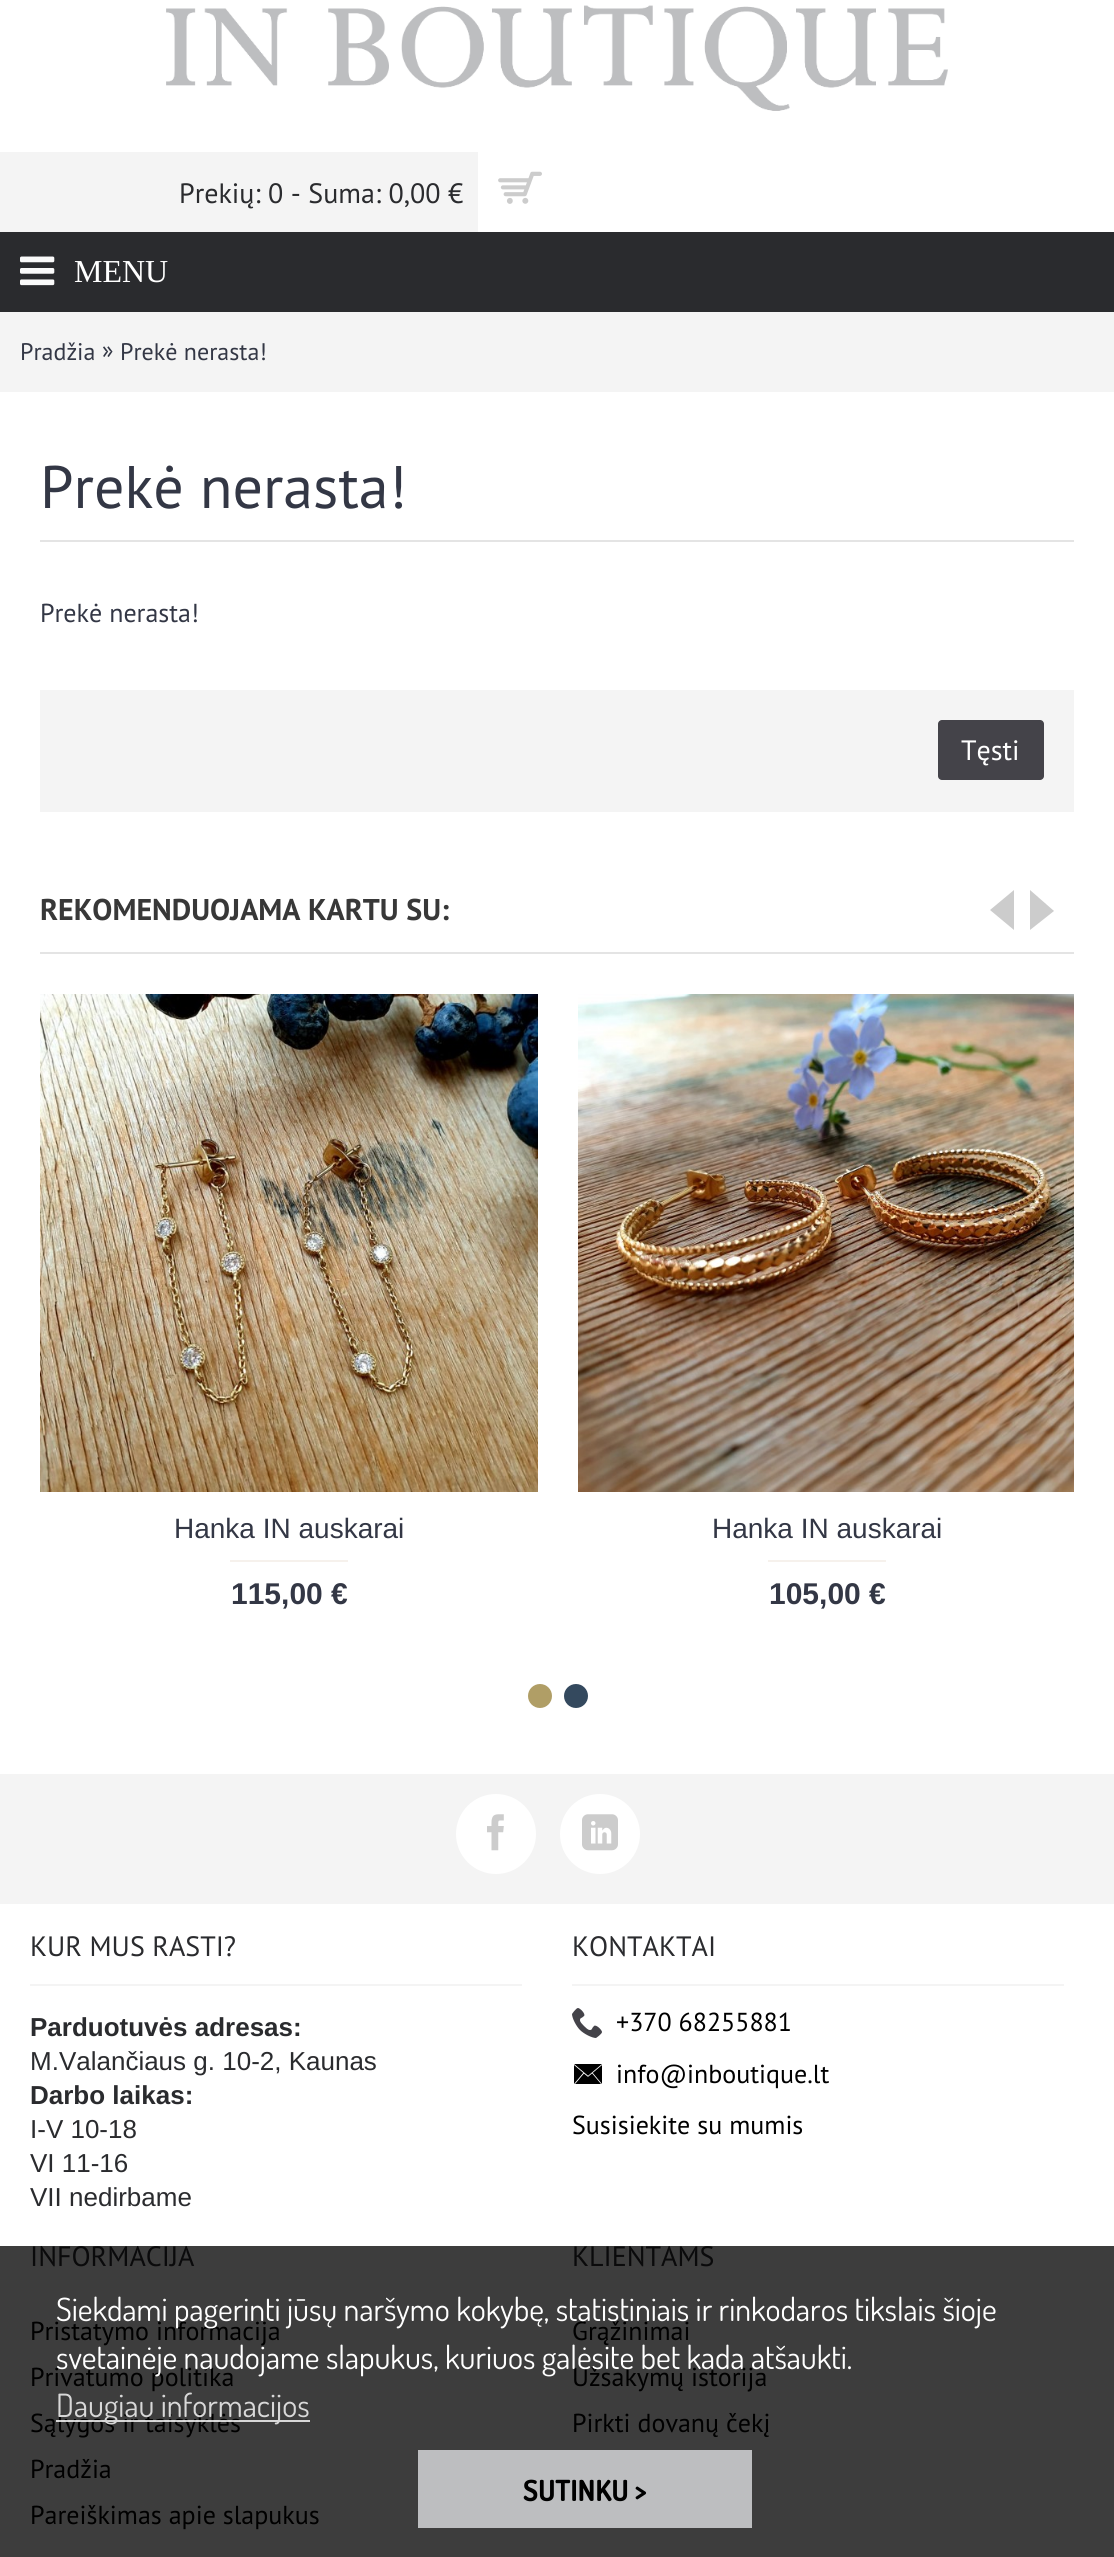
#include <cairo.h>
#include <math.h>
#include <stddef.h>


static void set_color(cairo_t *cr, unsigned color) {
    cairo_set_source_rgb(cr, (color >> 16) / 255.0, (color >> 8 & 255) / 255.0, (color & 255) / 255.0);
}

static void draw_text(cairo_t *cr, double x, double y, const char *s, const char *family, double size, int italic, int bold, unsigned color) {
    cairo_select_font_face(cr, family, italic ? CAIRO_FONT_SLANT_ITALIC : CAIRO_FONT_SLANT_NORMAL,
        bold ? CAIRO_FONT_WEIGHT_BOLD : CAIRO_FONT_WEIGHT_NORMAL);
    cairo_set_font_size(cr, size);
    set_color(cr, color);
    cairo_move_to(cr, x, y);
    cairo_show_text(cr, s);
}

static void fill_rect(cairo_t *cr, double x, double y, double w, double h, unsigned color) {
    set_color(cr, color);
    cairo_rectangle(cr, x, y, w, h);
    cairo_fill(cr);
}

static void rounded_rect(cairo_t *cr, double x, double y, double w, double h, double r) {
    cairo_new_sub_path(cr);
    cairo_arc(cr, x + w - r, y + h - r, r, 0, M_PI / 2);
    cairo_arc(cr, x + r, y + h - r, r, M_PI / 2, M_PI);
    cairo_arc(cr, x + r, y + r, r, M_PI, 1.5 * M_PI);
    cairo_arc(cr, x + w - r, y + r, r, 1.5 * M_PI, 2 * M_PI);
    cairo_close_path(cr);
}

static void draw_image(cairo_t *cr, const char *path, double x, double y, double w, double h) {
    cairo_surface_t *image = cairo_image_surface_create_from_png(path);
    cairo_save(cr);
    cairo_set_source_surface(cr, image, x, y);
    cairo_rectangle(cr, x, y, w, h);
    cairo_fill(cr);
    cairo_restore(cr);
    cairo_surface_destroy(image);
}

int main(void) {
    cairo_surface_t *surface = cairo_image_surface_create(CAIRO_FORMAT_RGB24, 1114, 2557);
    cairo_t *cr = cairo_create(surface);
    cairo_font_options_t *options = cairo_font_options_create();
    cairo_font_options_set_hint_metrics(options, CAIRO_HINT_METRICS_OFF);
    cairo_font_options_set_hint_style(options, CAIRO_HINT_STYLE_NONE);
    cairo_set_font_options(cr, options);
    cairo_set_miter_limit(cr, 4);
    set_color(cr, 0xFFFFFF);
    cairo_paint(cr);
    fill_rect(cr, 0, 2246, 1114, 311, 0x3D3D3D);
    draw_image(cr, "assets/img1.png", 166, 5, 782, 106);
    fill_rect(cr, 0, 152, 478, 80, 0xF4F4F4);
    draw_text(cr, 179, 203, "Prekių: 0 - Suma: 0,00 €", "PT Sans", 28, 0, 0, 0x2A2B2E);
    draw_image(cr, "assets/img2.png", 498, 171, 44, 33);
    fill_rect(cr, 0, 232, 1114, 80, 0x2A2B2E);
    draw_image(cr, "assets/img3.png", 20, 256, 35, 30);
    draw_text(cr, 74, 282, "MENU", "Liberation Serif", 32, 0, 0, 0xFFFFFF);
    fill_rect(cr, 0, 312, 1114, 80, 0xF4F4F4);
    draw_text(cr, 20, 360, "Pradžia", "PT Sans", 24, 0, 0, 0x333745);
    draw_text(cr, 102, 358, "»", "PT Sans", 24, 0, 0, 0x333745);
    draw_text(cr, 120, 360, "Prekė nerasta!", "PT Sans", 24, 0, 0, 0x333745);
    fill_rect(cr, 40, 540, 1034, 2, 0xE4E4E4);
    draw_text(cr, 40, 508, "Prekė nerasta!", "PT Sans", 60, 0, 0, 0x333745);
    draw_text(cr, 40, 622, "Prekė nerasta!", "PT Sans", 26, 0, 0, 0x333745);
    fill_rect(cr, 40, 690, 1034, 122, 0xF4F4F4);
    set_color(cr, 0x444349);
    rounded_rect(cr, 938, 720, 106, 60, 4);
    cairo_fill(cr);
    draw_text(cr, 961, 760, "Tęsti", "PT Sans", 28, 0, 0, 0xFFFFFF);
    fill_rect(cr, 40, 952, 1034, 2, 0xE4E4E4);
    draw_text(cr, 40, 920, "REKOMENDUOJAMA KARTU SU:", "PT Sans", 30, 0, 1, 0x383838);
    set_color(cr, 0xCCCCCC);
    cairo_new_path(cr);
    cairo_move_to(cr, 1014, 930);
    cairo_line_to(cr, 1014, 890);
    cairo_line_to(cr, 990, 910);
    cairo_close_path(cr);
    cairo_fill(cr);
    cairo_new_path(cr);
    cairo_move_to(cr, 1030, 890);
    cairo_line_to(cr, 1030, 930);
    cairo_line_to(cr, 1054, 911);
    cairo_close_path(cr);
    cairo_fill(cr);
    set_color(cr, 0xB09E66);
    cairo_arc(cr, 540, 1696, 12, 0, 2 * M_PI);
    cairo_fill(cr);
    set_color(cr, 0x34495E);
    cairo_arc(cr, 576, 1696, 12, 0, 2 * M_PI);
    cairo_fill(cr);
    draw_image(cr, "assets/img4.png", 40, 994, 498, 498);
    draw_text(cr, 174, 1538, "Hanka IN auskarai", "Liberation Sans", 28, 0, 0, 0x333745);
    fill_rect(cr, 230, 1560, 118, 2, 0xF6F1EC);
    draw_text(cr, 231, 1604, "115,00 €", "Liberation Sans", 30, 0, 1, 0x333745);
    draw_image(cr, "assets/img5.png", 578, 994, 496, 498);
    draw_text(cr, 712, 1538, "Hanka IN auskarai", "Liberation Sans", 28, 0, 0, 0x333745);
    fill_rect(cr, 768, 1560, 118, 2, 0xF6F1EC);
    draw_text(cr, 769, 1604, "105,00 €", "Liberation Sans", 30, 0, 1, 0x333745);
    fill_rect(cr, 0, 1774, 1114, 130, 0xF4F4F4);
    set_color(cr, 0xFFFFFF);
    cairo_new_path(cr);
    cairo_arc(cr, 496, 1834, 40, 0, 2 * M_PI);
    cairo_fill(cr);
    draw_image(cr, "assets/img6.png", 487, 1814, 17, 37);
    cairo_arc(cr, 600, 1834, 40, 0, 2 * M_PI);
    cairo_fill(cr);
    draw_image(cr, "assets/img7.png", 582, 1814, 36, 37);
    fill_rect(cr, 30, 1984, 492, 2, 0xF4F4F4);
    draw_text(cr, 30, 1956, "KUR MUS RASTI?", "PT Sans", 28, 0, 0, 0x2A2B2E);
    draw_text(cr, 30, 2036, "Parduotuvės adresas:", "Liberation Sans", 26, 0, 1, 0x2A2B2E);
    draw_text(cr, 30, 2070, "M.Valančiaus g. 10-2, Kaunas", "Liberation Sans", 26, 0, 0, 0x2A2B2E);
    draw_text(cr, 30, 2104, "Darbo laikas:", "Liberation Sans", 26, 0, 1, 0x2A2B2E);
    draw_text(cr, 30, 2138, "I-V 10-18", "Liberation Sans", 26, 0, 0, 0x2A2B2E);
    draw_text(cr, 30, 2172, "VI 11-16", "Liberation Sans", 26, 0, 0, 0x2A2B2E);
    draw_text(cr, 30, 2206, "VII nedirbame", "Liberation Sans", 26, 0, 0, 0x2A2B2E);
    fill_rect(cr, 572, 1984, 492, 2, 0xF4F4F4);
    draw_text(cr, 572, 1956, "KONTAKTAI", "PT Sans", 28, 0, 0, 0x2A2B2E);
    draw_image(cr, "assets/img8.png", 572, 2008, 30, 30);
    draw_text(cr, 616, 2031, "+370 68255881", "PT Sans", 26, 0, 0, 0x000000);
    draw_image(cr, "assets/img9.png", 574, 2064, 28, 20);
    draw_text(cr, 616, 2083, "info@inboutique.lt", "PT Sans", 26, 0, 0, 0x000000);
    draw_text(cr, 572, 2134, "Susisiekite su mumis", "PT Sans", 26, 0, 0, 0x000000);
    draw_text(cr, 30, 2266, "INFORMACIJA", "PT Sans", 28, 0, 0, 0x0A0A0B);
    draw_text(cr, 30, 2340, "Pristatymo informacija", "PT Sans", 26, 0, 0, 0x000000);
    draw_text(cr, 30, 2386, "Privatumo politika", "PT Sans", 26, 0, 0, 0x000000);
    draw_text(cr, 30, 2432, "Sąlygos ir taisyklės", "PT Sans", 26, 0, 0, 0x000000);
    draw_text(cr, 30, 2478, "Pradžia", "PT Sans", 26, 0, 0, 0x000000);
    draw_text(cr, 30, 2524, "Pareiškimas apie slapukus", "PT Sans", 26, 0, 0, 0x000000);
    draw_text(cr, 572, 2266, "KLIENTAMS", "PT Sans", 28, 0, 0, 0x0A0A0B);
    draw_text(cr, 572, 2340, "Grąžinimai", "PT Sans", 26, 0, 0, 0x000000);
    draw_text(cr, 572, 2386, "Užsakymų istorija", "PT Sans", 26, 0, 0, 0x000000);
    draw_text(cr, 572, 2432, "Pirkti dovanų čekį", "PT Sans", 26, 0, 0, 0x000000);
    draw_text(cr, 56, 2321, "Siekdami pagerinti jūsų naršymo kokybę, statistiniais ir rinkodaros tikslais šioje", "Dosis", 32, 0, 0, 0xFFFFFF);
    draw_text(cr, 56, 2369, "svetainėje naudojame slapukus, kuriuos galėsite bet kada atšaukti.", "Dosis", 32, 0, 0, 0xFFFFFF);
    cairo_set_source_rgba(cr, 1, 1, 1, 0.8);
    cairo_rectangle(cr, 56, 2420, 254, 2);
    cairo_fill(cr);
    draw_text(cr, 56, 2417, "Daugiau informacijos", "Dosis", 32, 0, 0, 0xD8D8D8);
    fill_rect(cr, 418, 2450, 334, 78, 0xBDBEC0);
    draw_text(cr, 523, 2501, "SUTINKU >", "Dosis", 29, 0, 1, 0x000000);
    cairo_surface_write_to_png(surface, "output.png");
    cairo_font_options_destroy(options);
    cairo_destroy(cr);
    cairo_surface_destroy(surface);
    return 0;
}
